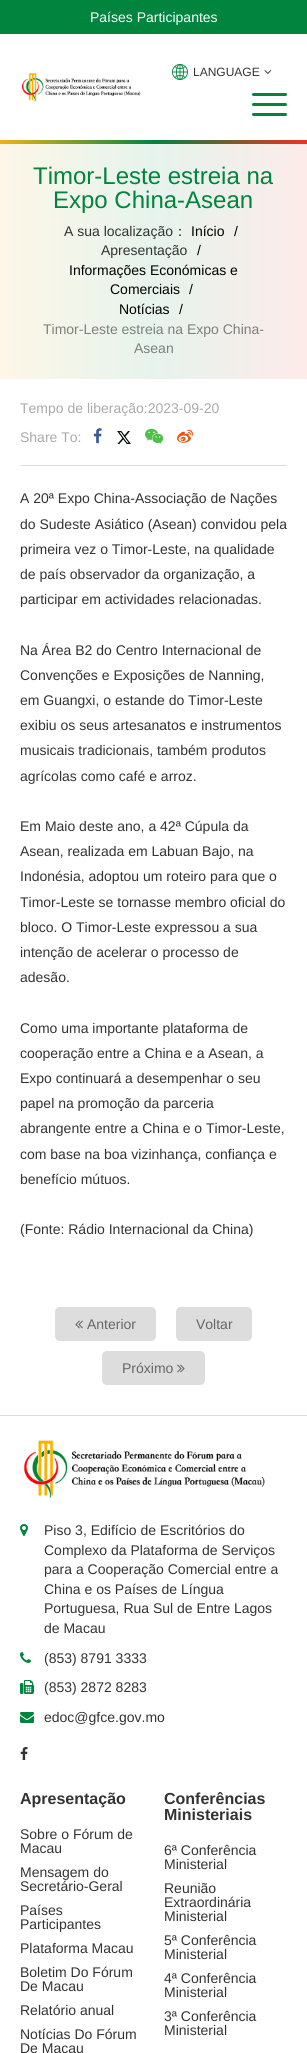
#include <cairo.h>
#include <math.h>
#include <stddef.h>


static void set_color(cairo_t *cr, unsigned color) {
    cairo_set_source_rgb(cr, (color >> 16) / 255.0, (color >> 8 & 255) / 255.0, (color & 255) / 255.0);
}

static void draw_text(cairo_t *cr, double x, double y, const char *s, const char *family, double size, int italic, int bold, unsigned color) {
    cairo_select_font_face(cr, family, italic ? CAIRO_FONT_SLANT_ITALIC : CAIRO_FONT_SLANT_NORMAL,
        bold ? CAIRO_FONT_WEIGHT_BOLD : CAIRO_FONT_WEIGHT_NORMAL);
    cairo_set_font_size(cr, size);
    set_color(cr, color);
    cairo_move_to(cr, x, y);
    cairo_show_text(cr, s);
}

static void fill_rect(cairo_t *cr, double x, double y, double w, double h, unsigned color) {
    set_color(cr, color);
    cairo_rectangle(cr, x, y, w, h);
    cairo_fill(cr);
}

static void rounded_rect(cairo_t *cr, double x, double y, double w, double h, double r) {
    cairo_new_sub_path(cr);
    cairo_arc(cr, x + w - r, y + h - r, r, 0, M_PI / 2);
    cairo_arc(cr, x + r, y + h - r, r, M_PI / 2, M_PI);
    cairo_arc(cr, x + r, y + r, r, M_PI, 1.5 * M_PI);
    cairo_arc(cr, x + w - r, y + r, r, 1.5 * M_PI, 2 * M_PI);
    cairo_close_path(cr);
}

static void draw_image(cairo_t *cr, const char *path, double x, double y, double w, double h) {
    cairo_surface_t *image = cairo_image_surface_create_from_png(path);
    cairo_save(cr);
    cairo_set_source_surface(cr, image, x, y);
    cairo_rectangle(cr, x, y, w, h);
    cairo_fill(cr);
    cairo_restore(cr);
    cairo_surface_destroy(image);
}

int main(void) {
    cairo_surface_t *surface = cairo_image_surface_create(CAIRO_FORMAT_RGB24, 307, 2053);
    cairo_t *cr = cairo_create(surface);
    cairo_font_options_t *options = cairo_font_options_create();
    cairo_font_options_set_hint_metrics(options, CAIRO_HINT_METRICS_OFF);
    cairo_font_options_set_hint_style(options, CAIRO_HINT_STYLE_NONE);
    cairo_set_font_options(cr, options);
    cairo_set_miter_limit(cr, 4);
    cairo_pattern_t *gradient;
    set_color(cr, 0xFFFFFF);
    cairo_paint(cr);
    fill_rect(cr, 0, 0, 307, 34, 0x00843E);
    draw_text(cr, 90, 22, "Países Participantes", "Liberation Sans", 14, 0, 0, 0xFFFFFF);
    draw_image(cr, "assets/img1.png", 172, 64, 16, 16);
    draw_text(cr, 193, 76, "LANGUAGE", "Liberation Sans", 12, 0, 0, 0x333333);
    draw_image(cr, "assets/img2.png", 264, 70, 8, 4);
    set_color(cr, 0x00853E);
    rounded_rect(cr, 252, 103, 35, 3, 1.5);
    cairo_fill(cr);
    rounded_rect(cr, 252, 93, 35, 3, 1.5);
    cairo_fill(cr);
    rounded_rect(cr, 252, 113, 35, 3, 1.5);
    cairo_fill(cr);
    draw_image(cr, "assets/img3.png", 22, 73, 119, 29);
    gradient = cairo_pattern_create_linear(0, 142, 307, 142);
    cairo_pattern_add_color_stop_rgba(gradient, 0, 0.937, 0.702, 0.106, 1);
    cairo_pattern_add_color_stop_rgba(gradient, 0.5, 0, 0.518, 0.251, 1);
    cairo_pattern_add_color_stop_rgba(gradient, 1, 0.929, 0.196, 0.141, 1);
    cairo_set_source(cr, gradient);
    cairo_pattern_destroy(gradient);
    cairo_rectangle(cr, 0, 140, 307, 4);
    cairo_fill(cr);
    gradient = cairo_pattern_create_linear(0, 262, 307, 262);
    cairo_pattern_add_color_stop_rgba(gradient, 0, 0.992, 0.969, 0.91, 1);
    cairo_pattern_add_color_stop_rgba(gradient, 0.5, 0.902, 0.953, 0.925, 1);
    cairo_pattern_add_color_stop_rgba(gradient, 1, 0.992, 0.922, 0.914, 1);
    cairo_set_source(cr, gradient);
    cairo_pattern_destroy(gradient);
    cairo_rectangle(cr, 0, 144, 307, 235);
    cairo_fill(cr);
    draw_text(cr, 33, 184, "Timor-Leste estreia na", "Liberation Sans", 24, 0, 0, 0x00843E);
    draw_text(cr, 53, 208, "Expo China-Asean", "Liberation Sans", 24, 0, 0, 0x00843E);
    draw_text(cr, 64, 236, "A sua localização", "Liberation Sans", 14, 0, 0, 0x333333);
    draw_text(cr, 173, 236, "：", "WenQuanYi Zen Hei Medium", 14, 0, 0, 0x333333);
    draw_text(cr, 191, 236, "Início", "Liberation Sans", 14, 0, 0, 0x000000);
    draw_text(cr, 234, 236, "/", "Liberation Sans", 14, 0, 0, 0x000000);
    draw_text(cr, 101, 255, "Apresentação", "Liberation Sans", 14, 0, 0, 0x333333);
    draw_text(cr, 197, 255, "/", "Liberation Sans", 14, 0, 0, 0x000000);
    draw_text(cr, 69, 275, "Informações Económicas e", "Liberation Sans", 14, 0, 0, 0x000000);
    draw_text(cr, 110, 294, "Comerciais", "Liberation Sans", 14, 0, 0, 0x000000);
    draw_text(cr, 189, 294, "/", "Liberation Sans", 14, 0, 0, 0x000000);
    draw_text(cr, 119, 314, "Notícias", "Liberation Sans", 14, 0, 0, 0x000000);
    draw_text(cr, 179, 314, "/", "Liberation Sans", 14, 0, 0, 0x000000);
    draw_text(cr, 43, 334, "Timor-Leste estreia na Expo China-", "Liberation Sans", 14, 0, 0, 0x7E807D);
    draw_text(cr, 134, 353, "Asean", "Liberation Sans", 14, 0, 0, 0x7E807D);
    fill_rect(cr, 20, 465, 267, 1, 0xDDDDDD);
    draw_text(cr, 20, 413, "Tempo de liberação:2023-09-20", "Liberation Sans", 14, 0, 0, 0xAAAAAA);
    draw_text(cr, 20, 442, "Share To:", "Liberation Sans", 14, 0, 0, 0xAAAAAA);
    draw_image(cr, "assets/img4.png", 93, 428, 9, 16);
    draw_image(cr, "assets/img5.png", 117, 431, 14, 13);
    draw_image(cr, "assets/img6.png", 145, 428, 19, 16);
    draw_image(cr, "assets/img7.png", 177, 429, 16, 14);
    draw_text(cr, 20, 503, "A 20ª Expo China-Associação de Nações", "Liberation Sans", 14, 0, 0, 0x333333);
    draw_text(cr, 20, 529, "do Sudeste Asiático (Asean) convidou pela", "Liberation Sans", 14, 0, 0, 0x333333);
    draw_text(cr, 20, 554, "primeira vez o Timor-Leste, na qualidade", "Liberation Sans", 14, 0, 0, 0x333333);
    draw_text(cr, 20, 579, "de país observador da organização, a", "Liberation Sans", 14, 0, 0, 0x333333);
    draw_text(cr, 20, 604, "participar em actividades relacionadas.", "Liberation Sans", 14, 0, 0, 0x333333);
    draw_text(cr, 20, 655, "Na Área B2 do Centro Internacional de", "Liberation Sans", 14, 0, 0, 0x333333);
    draw_text(cr, 20, 680, "Convenções e Exposições de Nanning,", "Liberation Sans", 14, 0, 0, 0x333333);
    draw_text(cr, 20, 705, "em Guangxi, o estande do Timor-Leste", "Liberation Sans", 14, 0, 0, 0x333333);
    draw_text(cr, 20, 730, "exibiu os seus artesanatos e instrumentos", "Liberation Sans", 14, 0, 0, 0x333333);
    draw_text(cr, 20, 755, "musicais tradicionais, também produtos", "Liberation Sans", 14, 0, 0, 0x333333);
    draw_text(cr, 20, 781, "agrícolas como café e arroz.", "Liberation Sans", 14, 0, 0, 0x333333);
    draw_text(cr, 20, 831, "Em Maio deste ano, a 42ª Cúpula da", "Liberation Sans", 14, 0, 0, 0x333333);
    draw_text(cr, 20, 856, "Asean, realizada em Labuan Bajo, na", "Liberation Sans", 14, 0, 0, 0x333333);
    draw_text(cr, 20, 881, "Indonésia, adoptou um roteiro para que o", "Liberation Sans", 14, 0, 0, 0x333333);
    draw_text(cr, 20, 907, "Timor-Leste se tornasse membro oficial do", "Liberation Sans", 14, 0, 0, 0x333333);
    draw_text(cr, 20, 932, "bloco. O Timor-Leste expressou a sua", "Liberation Sans", 14, 0, 0, 0x333333);
    draw_text(cr, 20, 957, "intenção de acelerar o processo de", "Liberation Sans", 14, 0, 0, 0x333333);
    draw_text(cr, 20, 982, "adesão.", "Liberation Sans", 14, 0, 0, 0x333333);
    draw_text(cr, 20, 1033, "Como uma importante plataforma de", "Liberation Sans", 14, 0, 0, 0x333333);
    draw_text(cr, 20, 1058, "cooperação entre a China e a Asean, a", "Liberation Sans", 14, 0, 0, 0x333333);
    draw_text(cr, 20, 1083, "Expo continuará a desempenhar o seu", "Liberation Sans", 14, 0, 0, 0x333333);
    draw_text(cr, 20, 1108, "papel na promoção da parceria", "Liberation Sans", 14, 0, 0, 0x333333);
    draw_text(cr, 20, 1133, "abrangente entre a China e o Timor-Leste,", "Liberation Sans", 14, 0, 0, 0x333333);
    draw_text(cr, 20, 1159, "com base na boa vizinhança, confiança e", "Liberation Sans", 14, 0, 0, 0x333333);
    draw_text(cr, 20, 1184, "benefício mútuos.", "Liberation Sans", 14, 0, 0, 0x333333);
    draw_text(cr, 20, 1234, "(Fonte: Rádio Internacional da China)", "Liberation Sans", 14, 0, 0, 0x333333);
    set_color(cr, 0xDDDDDD);
    rounded_rect(cr, 55, 1307, 101, 34, 5);
    cairo_fill(cr);
    draw_image(cr, "assets/img8.png", 75, 1320, 8, 9);
    draw_text(cr, 87, 1329, "Anterior", "Liberation Sans", 14, 0, 0, 0x666666);
    set_color(cr, 0xDDDDDD);
    rounded_rect(cr, 176, 1307, 76, 34, 5);
    cairo_fill(cr);
    draw_text(cr, 196, 1329, "Voltar", "Liberation Sans", 14, 0, 0, 0x666666);
    set_color(cr, 0xDDDDDD);
    rounded_rect(cr, 102, 1351, 103, 34, 5);
    cairo_fill(cr);
    draw_text(cr, 122, 1373, "Próximo", "Liberation Sans", 14, 0, 0, 0x666666);
    draw_image(cr, "assets/img9.png", 177, 1364, 8, 9);
    fill_rect(cr, 0, 1415, 307, 1, 0xDDDDDD);
    draw_image(cr, "assets/img10.png", 24, 1440, 241, 58);
    draw_image(cr, "assets/img11.png", 20, 1524, 8, 12);
    draw_text(cr, 44, 1535, "Piso 3, Edifício de Escritórios do", "Liberation Sans", 14, 0, 0, 0x333333);
    draw_text(cr, 44, 1555, "Complexo da Plataforma de Serviços", "Liberation Sans", 14, 0, 0, 0x333333);
    draw_text(cr, 44, 1574, "para a Cooperação Comercial entre a", "Liberation Sans", 14, 0, 0, 0x333333);
    draw_text(cr, 44, 1594, "China e os Países de Língua", "Liberation Sans", 14, 0, 0, 0x333333);
    draw_text(cr, 44, 1613, "Portuguesa, Rua Sul de Entre Lagos", "Liberation Sans", 14, 0, 0, 0x333333);
    draw_text(cr, 44, 1633, "de Macau", "Liberation Sans", 14, 0, 0, 0x333333);
    draw_image(cr, "assets/img12.png", 20, 1652, 11, 11);
    draw_text(cr, 44, 1663, "(853) 8791 3333", "Liberation Sans", 14, 0, 0, 0x333333);
    draw_image(cr, "assets/img13.png", 20, 1680, 14, 14);
    draw_text(cr, 44, 1692, "(853) 2872 8283", "Liberation Sans", 14, 0, 0, 0x333333);
    draw_image(cr, "assets/img14.png", 20, 1712, 14, 11);
    draw_text(cr, 44, 1722, "edoc@gfce.gov.mo", "Liberation Sans", 14, 0, 0, 0x333333);
    draw_image(cr, "assets/img15.png", 20, 1747, 8, 13);
    draw_text(cr, 20, 1804, "Apresentação", "Liberation Sans", 16, 0, 1, 0x333333);
    draw_text(cr, 20, 1839, "Sobre o Fórum de", "Liberation Sans", 14, 0, 0, 0x333333);
    draw_text(cr, 20, 1853, "Macau", "Liberation Sans", 14, 0, 0, 0x333333);
    draw_text(cr, 20, 1877, "Mensagem do", "Liberation Sans", 14, 0, 0, 0x333333);
    draw_text(cr, 20, 1891, "Secretário-Geral", "Liberation Sans", 14, 0, 0, 0x333333);
    draw_text(cr, 20, 1915, "Países", "Liberation Sans", 14, 0, 0, 0x333333);
    draw_text(cr, 20, 1929, "Participantes", "Liberation Sans", 14, 0, 0, 0x333333);
    draw_text(cr, 20, 1953, "Plataforma Macau", "Liberation Sans", 14, 0, 0, 0x333333);
    draw_text(cr, 20, 1977, "Boletim Do Fórum", "Liberation Sans", 14, 0, 0, 0x333333);
    draw_text(cr, 20, 1991, "De Macau", "Liberation Sans", 14, 0, 0, 0x333333);
    draw_text(cr, 20, 2015, "Relatório anual", "Liberation Sans", 14, 0, 0, 0x333333);
    draw_text(cr, 20, 2039, "Notícias Do Fórum", "Liberation Sans", 14, 0, 0, 0x333333);
    draw_text(cr, 20, 2053, "De Macau", "Liberation Sans", 14, 0, 0, 0x333333);
    draw_text(cr, 164, 1804, "Conferências", "Liberation Sans", 16, 0, 1, 0x333333);
    draw_text(cr, 164, 1820, "Ministeriais", "Liberation Sans", 16, 0, 1, 0x333333);
    draw_text(cr, 164, 1855, "6ª Conferência", "Liberation Sans", 14, 0, 0, 0x333333);
    draw_text(cr, 164, 1869, "Ministerial", "Liberation Sans", 14, 0, 0, 0x333333);
    draw_text(cr, 164, 1893, "Reunião", "Liberation Sans", 14, 0, 0, 0x333333);
    draw_text(cr, 164, 1907, "Extraordinária", "Liberation Sans", 14, 0, 0, 0x333333);
    draw_text(cr, 164, 1921, "Ministerial", "Liberation Sans", 14, 0, 0, 0x333333);
    draw_text(cr, 164, 1945, "5ª Conferência", "Liberation Sans", 14, 0, 0, 0x333333);
    draw_text(cr, 164, 1959, "Ministerial", "Liberation Sans", 14, 0, 0, 0x333333);
    draw_text(cr, 164, 1983, "4ª Conferência", "Liberation Sans", 14, 0, 0, 0x333333);
    draw_text(cr, 164, 1997, "Ministerial", "Liberation Sans", 14, 0, 0, 0x333333);
    draw_text(cr, 164, 2021, "3ª Conferência", "Liberation Sans", 14, 0, 0, 0x333333);
    draw_text(cr, 164, 2035, "Ministerial", "Liberation Sans", 14, 0, 0, 0x333333);
    cairo_surface_write_to_png(surface, "output.png");
    cairo_font_options_destroy(options);
    cairo_destroy(cr);
    cairo_surface_destroy(surface);
    return 0;
}
